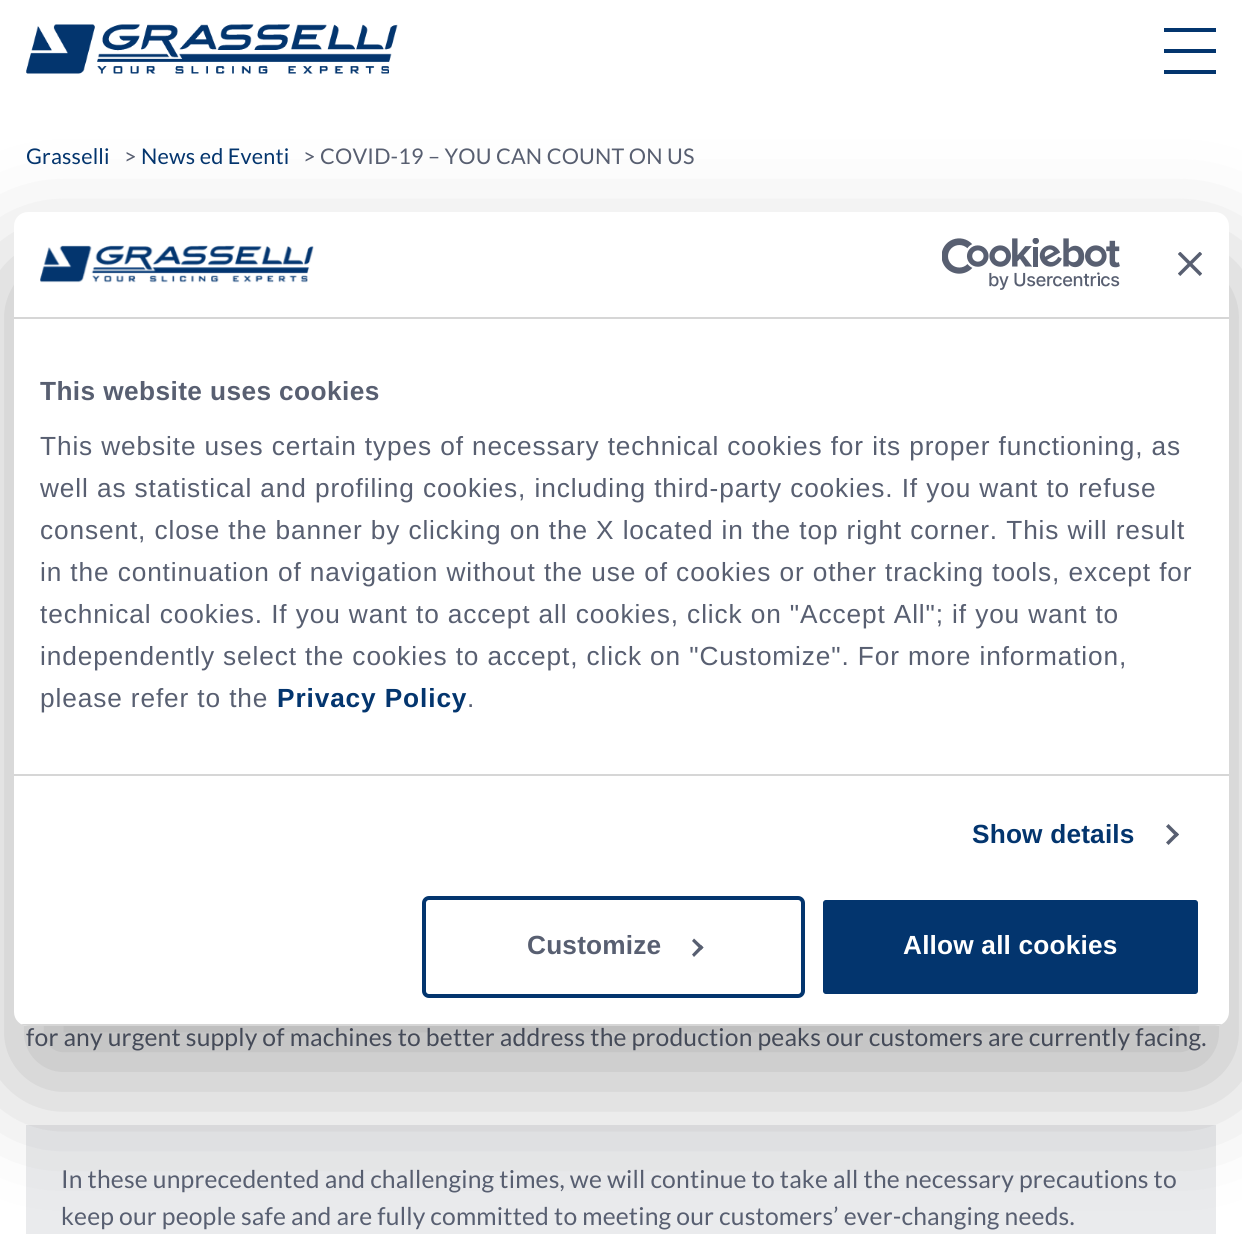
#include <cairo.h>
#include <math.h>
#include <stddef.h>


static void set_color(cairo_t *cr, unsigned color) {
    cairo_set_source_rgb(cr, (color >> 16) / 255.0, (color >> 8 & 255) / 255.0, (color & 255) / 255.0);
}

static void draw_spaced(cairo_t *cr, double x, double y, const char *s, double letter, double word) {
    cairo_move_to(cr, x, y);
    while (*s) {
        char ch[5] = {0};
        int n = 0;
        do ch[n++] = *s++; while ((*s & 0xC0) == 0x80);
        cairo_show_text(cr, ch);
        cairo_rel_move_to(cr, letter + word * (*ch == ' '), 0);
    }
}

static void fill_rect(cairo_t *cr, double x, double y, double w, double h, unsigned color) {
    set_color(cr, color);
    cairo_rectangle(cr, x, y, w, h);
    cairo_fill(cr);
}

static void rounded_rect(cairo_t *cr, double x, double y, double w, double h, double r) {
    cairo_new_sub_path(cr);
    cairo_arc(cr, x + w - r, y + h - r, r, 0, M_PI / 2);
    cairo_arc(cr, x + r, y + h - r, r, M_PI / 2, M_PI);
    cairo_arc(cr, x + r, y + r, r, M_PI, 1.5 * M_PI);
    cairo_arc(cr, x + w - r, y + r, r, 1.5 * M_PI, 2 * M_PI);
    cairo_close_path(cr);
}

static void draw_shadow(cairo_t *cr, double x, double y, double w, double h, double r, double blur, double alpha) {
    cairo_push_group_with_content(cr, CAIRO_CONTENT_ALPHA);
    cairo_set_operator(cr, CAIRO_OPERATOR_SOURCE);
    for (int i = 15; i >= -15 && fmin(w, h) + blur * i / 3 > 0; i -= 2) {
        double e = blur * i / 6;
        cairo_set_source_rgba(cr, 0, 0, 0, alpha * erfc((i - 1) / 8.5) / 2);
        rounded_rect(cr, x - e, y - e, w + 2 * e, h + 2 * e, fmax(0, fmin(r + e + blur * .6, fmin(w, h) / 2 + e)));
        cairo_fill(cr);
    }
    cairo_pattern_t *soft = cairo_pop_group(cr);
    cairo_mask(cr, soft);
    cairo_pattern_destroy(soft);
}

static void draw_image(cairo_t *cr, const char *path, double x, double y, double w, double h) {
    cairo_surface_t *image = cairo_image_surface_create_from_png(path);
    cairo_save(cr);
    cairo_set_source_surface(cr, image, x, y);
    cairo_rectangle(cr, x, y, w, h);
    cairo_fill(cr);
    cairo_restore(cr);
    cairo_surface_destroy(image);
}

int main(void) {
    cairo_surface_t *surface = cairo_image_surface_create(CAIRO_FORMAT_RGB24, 1242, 1234);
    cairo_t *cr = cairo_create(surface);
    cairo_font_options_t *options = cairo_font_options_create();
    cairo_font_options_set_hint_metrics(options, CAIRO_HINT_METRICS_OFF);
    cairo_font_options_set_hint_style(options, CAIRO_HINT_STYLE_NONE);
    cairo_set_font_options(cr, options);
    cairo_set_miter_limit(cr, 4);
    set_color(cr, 0xFFFFFF);
    cairo_paint(cr);
    draw_image(cr, "assets/img1.png", 26, 24, 372, 50);
    fill_rect(cr, 1164, 49, 52, 4, 0x03356E);
    fill_rect(cr, 1164, 28, 52, 4, 0x03356E);
    fill_rect(cr, 1164, 70, 52, 4, 0x03356E);
    cairo_select_font_face(cr, "Lato", CAIRO_FONT_SLANT_NORMAL, CAIRO_FONT_WEIGHT_NORMAL);
    cairo_set_font_size(cr, 21.6);
    draw_spaced(cr, 26, 164, "Grasselli", 0.18, 0);
    set_color(cr, 0x585F71);
    draw_spaced(cr, 124, 164, ">", 0.18, 0);
    set_color(cr, 0x03356E);
    draw_spaced(cr, 141, 164, "News ed Eventi", 0.18, 0);
    set_color(cr, 0x585F71);
    draw_spaced(cr, 303, 164, "> COVID-19 – YOU CAN COUNT ON US", 0.18, 0);
    cairo_set_font_size(cr, 24.65);
    draw_spaced(cr, 26, 1046, "for any urgent supply of machines to better address the production peaks our customers are currently facing.", 0.18, 0);
    fill_rect(cr, 26, 1125, 1190, 109, 0xEAEBED);
    set_color(cr, 0x585F71);
    draw_spaced(cr, 61, 1188, "In these unprecedented and challenging times, we will continue to take all the necessary precautions to", 0.18, 0);
    draw_spaced(cr, 61, 1225, "keep our people safe and are fully committed to meeting our customers’ ever-changing needs.", 0.18, 0);
    set_color(cr, 0x000000);
    draw_shadow(cr, 14, 268, 1215, 814, 14, 59.5, 0.3);
    set_color(cr, 0xFFFFFF);
    rounded_rect(cr, 14, 212, 1215, 814, 14);
    cairo_fill(cr);
    fill_rect(cr, 14, 317, 1215, 2, 0xD6D6D6);
    draw_image(cr, "assets/img2.png", 40, 245, 274, 38);
    draw_image(cr, "assets/img3.png", 942, 238, 178, 52);
    draw_image(cr, "assets/img4.png", 1178, 252, 24, 24);
    fill_rect(cr, 14, 774, 1215, 2, 0xD6D6D6);
    cairo_select_font_face(cr, "Liberation Sans", CAIRO_FONT_SLANT_NORMAL, CAIRO_FONT_WEIGHT_BOLD);
    cairo_set_font_size(cr, 26.25);
    set_color(cr, 0x585F71);
    draw_spaced(cr, 40, 400, "This website uses cookies", 0.4, 0);
    cairo_select_font_face(cr, "Liberation Sans", CAIRO_FONT_SLANT_NORMAL, CAIRO_FONT_WEIGHT_NORMAL);
    draw_spaced(cr, 40, 455, "This website uses certain types of necessary technical cookies for its proper functioning, as", 0.88, 0);
    draw_spaced(cr, 40, 497, "well as statistical and profiling cookies, including third-party cookies. If you want to refuse", 0.88, 0);
    draw_spaced(cr, 40, 539, "consent, close the banner by clicking on the X located in the top right corner. This will result", 0.88, 0);
    draw_spaced(cr, 40, 581, "in the continuation of navigation without the use of cookies or other tracking tools, except for", 0.88, 0);
    draw_spaced(cr, 40, 623, "technical cookies. If you want to accept all cookies, click on \"Accept All\"; if you want to", 0.88, 0);
    draw_spaced(cr, 40, 665, "independently select the cookies to accept, click on \"Customize\". For more information,", 0.88, 0);
    draw_spaced(cr, 40, 707, "please refer to the", 0.88, 0);
    cairo_select_font_face(cr, "Liberation Sans", CAIRO_FONT_SLANT_NORMAL, CAIRO_FONT_WEIGHT_BOLD);
    set_color(cr, 0x03356E);
    draw_spaced(cr, 277, 707, "Privacy Policy", 0.88, 0);
    cairo_select_font_face(cr, "Liberation Sans", CAIRO_FONT_SLANT_NORMAL, CAIRO_FONT_WEIGHT_NORMAL);
    set_color(cr, 0x585F71);
    draw_spaced(cr, 467, 707, ".", 0.88, 0);
    cairo_select_font_face(cr, "Liberation Sans", CAIRO_FONT_SLANT_NORMAL, CAIRO_FONT_WEIGHT_BOLD);
    set_color(cr, 0x03356E);
    draw_spaced(cr, 972, 843, "Show details", 0.18, 0);
    set_color(cr, 0x585F71);
    cairo_new_path(cr);
    cairo_move_to(cr, 1168.5, 824);
    cairo_line_to(cr, 1179, 834.5);
    cairo_line_to(cr, 1176.5, 837);
    cairo_line_to(cr, 1166, 826.5);
    cairo_close_path(cr);
    cairo_fill(cr);
    cairo_new_path(cr);
    cairo_move_to(cr, 1176.5, 832);
    cairo_line_to(cr, 1179, 834.5);
    cairo_line_to(cr, 1168.5, 845);
    cairo_line_to(cr, 1166, 842.5);
    cairo_close_path(cr);
    cairo_fill(cr);
    cairo_save(cr);
    rounded_rect(cr, 14, 212, 1215, 814, 14);
    cairo_clip(cr);
    fill_rect(cr, 14, 1024, 1215, 2, 0xD6D6D6);
    cairo_restore(cr);
    rounded_rect(cr, 424, 898, 379, 98, 5);
    set_color(cr, 0x03356E);
    cairo_set_line_width(cr, 4);
    cairo_stroke(cr);
    set_color(cr, 0x585F71);
    draw_spaced(cr, 527, 954, "Customize", 0.18, 0);
    cairo_new_path(cr);
    cairo_move_to(cr, 694, 938.5);
    cairo_line_to(cr, 703.5, 947.5);
    cairo_line_to(cr, 701, 950);
    cairo_line_to(cr, 692, 941);
    cairo_close_path(cr);
    cairo_fill(cr);
    cairo_new_path(cr);
    cairo_move_to(cr, 701, 945);
    cairo_line_to(cr, 703.5, 947.5);
    cairo_line_to(cr, 694, 957);
    cairo_line_to(cr, 692, 954.5);
    cairo_close_path(cr);
    cairo_fill(cr);
    set_color(cr, 0x03356E);
    rounded_rect(cr, 821, 898, 379, 98, 5);
    cairo_fill_preserve(cr);
    set_color(cr, 0xFFFFFF);
    cairo_stroke(cr);
    draw_spaced(cr, 903, 954, "Allow all cookies", 0.18, 0);
    cairo_surface_write_to_png(surface, "output.png");
    cairo_font_options_destroy(options);
    cairo_destroy(cr);
    cairo_surface_destroy(surface);
    return 0;
}
